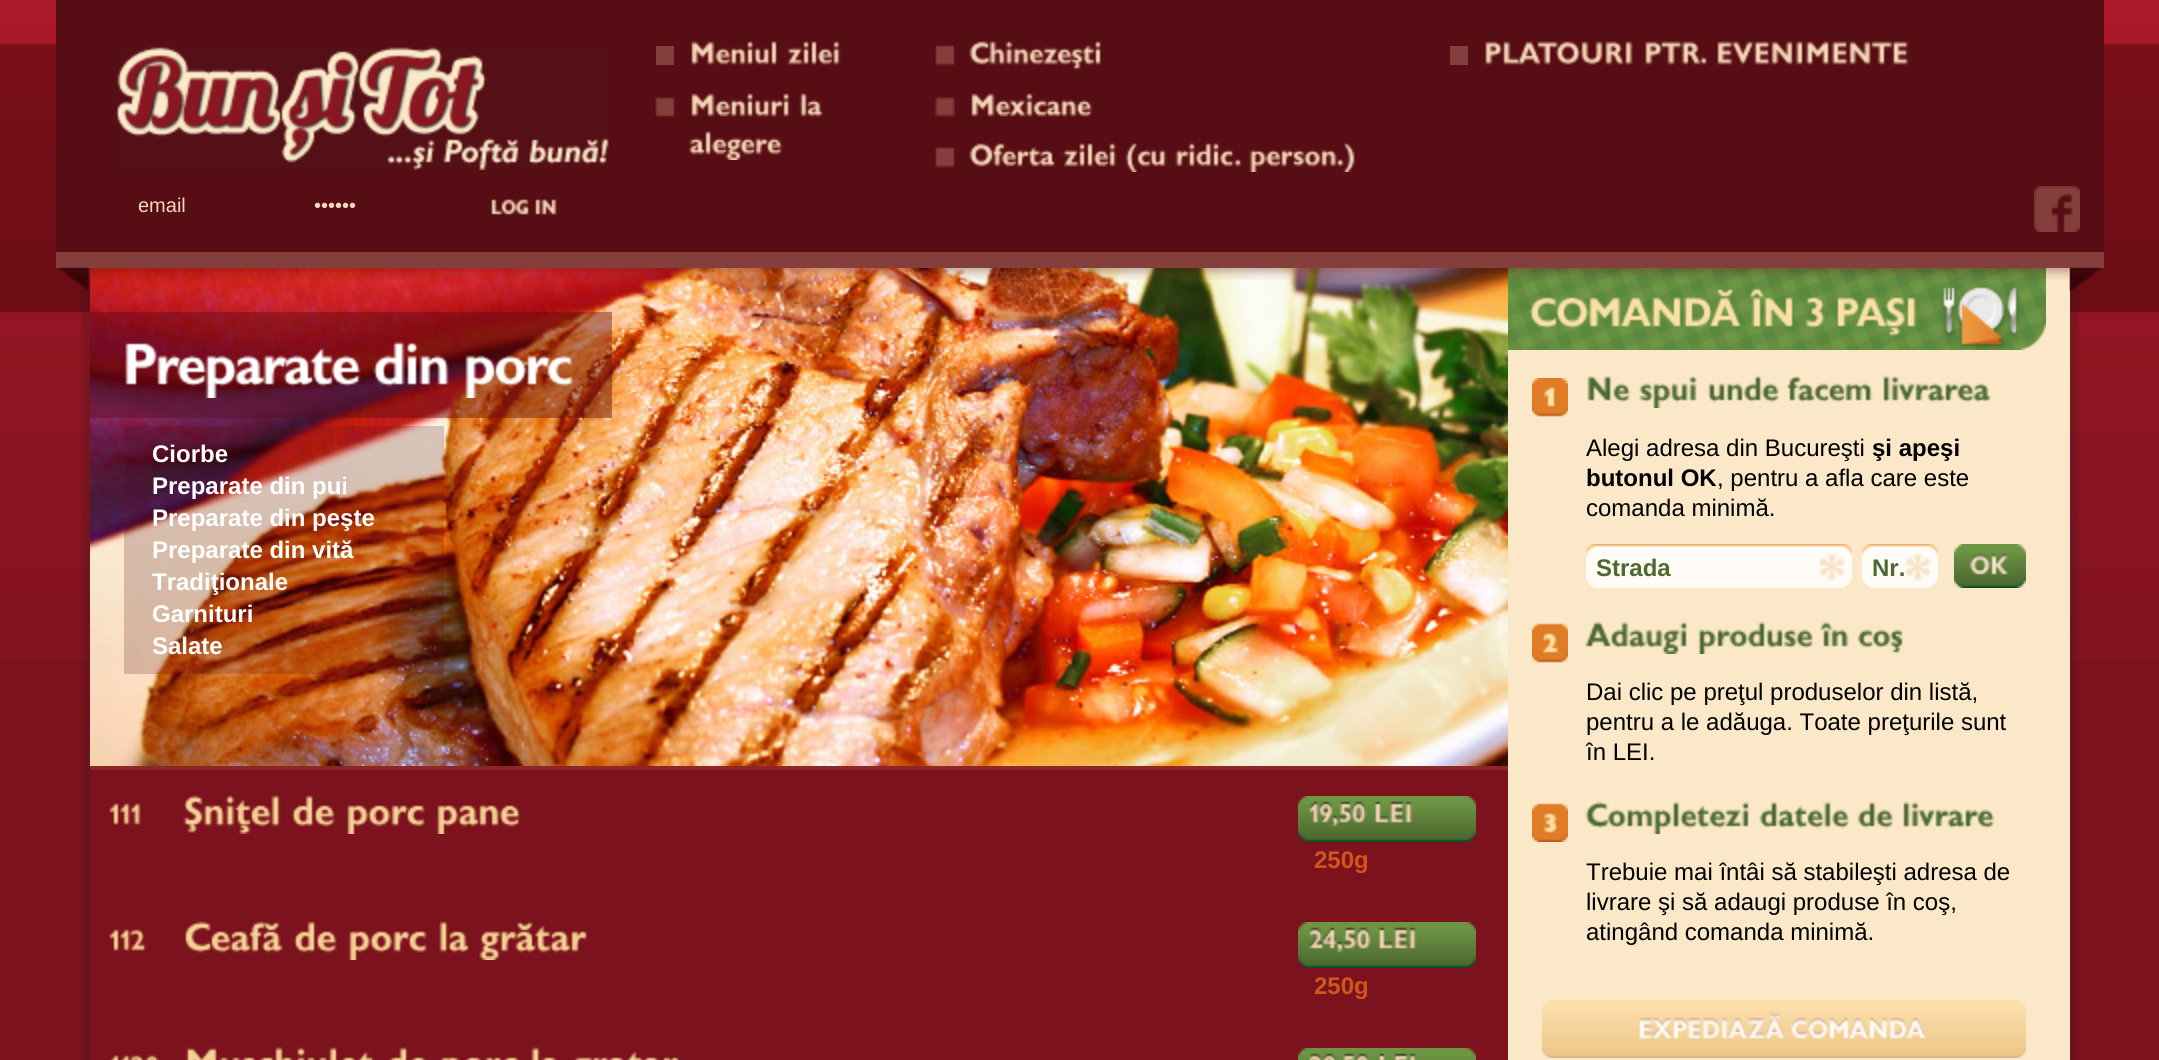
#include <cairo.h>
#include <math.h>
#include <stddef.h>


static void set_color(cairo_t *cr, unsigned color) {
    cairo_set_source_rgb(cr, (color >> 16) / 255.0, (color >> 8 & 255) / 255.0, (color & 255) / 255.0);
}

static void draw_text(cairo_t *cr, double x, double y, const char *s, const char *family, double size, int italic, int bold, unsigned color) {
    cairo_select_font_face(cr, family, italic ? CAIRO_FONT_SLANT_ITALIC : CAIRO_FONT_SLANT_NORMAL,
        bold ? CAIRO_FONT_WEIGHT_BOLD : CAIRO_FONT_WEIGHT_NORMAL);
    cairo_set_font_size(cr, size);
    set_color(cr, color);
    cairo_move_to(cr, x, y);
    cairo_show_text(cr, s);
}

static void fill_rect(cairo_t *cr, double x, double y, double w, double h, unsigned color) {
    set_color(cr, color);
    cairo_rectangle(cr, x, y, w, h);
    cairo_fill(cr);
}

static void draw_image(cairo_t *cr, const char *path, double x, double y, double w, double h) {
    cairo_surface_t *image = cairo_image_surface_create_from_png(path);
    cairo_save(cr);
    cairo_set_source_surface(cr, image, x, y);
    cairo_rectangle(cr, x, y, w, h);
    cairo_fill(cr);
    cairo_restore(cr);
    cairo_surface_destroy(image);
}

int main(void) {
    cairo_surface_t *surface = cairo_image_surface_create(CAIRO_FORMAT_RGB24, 2159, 1060);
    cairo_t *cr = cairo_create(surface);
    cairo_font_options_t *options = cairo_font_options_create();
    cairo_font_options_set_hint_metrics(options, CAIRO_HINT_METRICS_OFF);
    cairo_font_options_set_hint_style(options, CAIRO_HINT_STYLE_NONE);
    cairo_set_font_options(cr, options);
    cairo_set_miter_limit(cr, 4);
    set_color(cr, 0x7E121E);
    cairo_paint(cr);
    draw_image(cr, "assets/img1.png", 0, 0, 2159, 661);
    fill_rect(cr, 56, 0, 2048, 252, 0x570D14);
    fill_rect(cr, 56, 252, 2048, 16, 0x843F3C);
    draw_image(cr, "assets/img2.png", 115, 47, 494, 123);
    fill_rect(cr, 656, 46, 18, 19, 0x843F3C);
    draw_image(cr, "assets/img3.png", 691, 41, 86, 24);
    draw_image(cr, "assets/img4.png", 787, 41, 54, 24);
    draw_image(cr, "assets/img5.png", 655, 97, 20, 20);
    draw_image(cr, "assets/img6.png", 691, 93, 100, 24);
    draw_image(cr, "assets/img7.png", 799, 93, 24, 24);
    draw_image(cr, "assets/img8.png", 689, 131, 94, 29);
    draw_image(cr, "assets/img9.png", 935, 45, 20, 21);
    draw_image(cr, "assets/img10.png", 969, 41, 132, 29);
    draw_image(cr, "assets/img11.png", 935, 97, 20, 20);
    draw_image(cr, "assets/img12.png", 971, 93, 122, 24);
    draw_image(cr, "assets/img9.png", 935, 147, 20, 21);
    draw_image(cr, "assets/img13.png", 969, 143, 86, 24);
    draw_image(cr, "assets/img4.png", 1063, 143, 54, 24);
    draw_image(cr, "assets/img14.png", 1125, 143, 42, 29);
    draw_image(cr, "assets/img15.png", 1175, 143, 67, 24);
    draw_image(cr, "assets/img16.png", 1249, 143, 106, 29);
    fill_rect(cr, 1450, 46, 18, 19, 0x843F3C);
    draw_image(cr, "assets/img17.png", 1485, 41, 148, 24);
    draw_image(cr, "assets/img18.png", 1645, 41, 62, 24);
    draw_image(cr, "assets/img19.png", 1717, 41, 192, 24);
    draw_text(cr, 138, 212, "email", "Liberation Sans", 20, 0, 0, 0xF6D7B7);
    draw_text(cr, 314, 212, "••••••", "Liberation Sans", 20, 0, 0, 0xF6D7B7);
    draw_image(cr, "assets/img20.png", 491, 199, 66, 16);
    draw_image(cr, "assets/img21.png", 2034, 186, 46, 46);
    draw_image(cr, "assets/img24.png", 80, 268, 2000, 792);
    draw_image(cr, "assets/img25.png", 90, 268, 1418, 498);
    fill_rect(cr, 1508, 268, 562, 792, 0xFBE8C8);
    draw_image(cr, "assets/img51.png", 1508, 268, 538, 82);
    draw_image(cr, "assets/img22.png", 58, 267, 2044, 25);
    draw_image(cr, "assets/img23.png", 90, 268, 1980, 12);
    fill_rect(cr, 90, 766, 1418, 4, 0x8C2824);
    cairo_set_source_rgba(cr, 0.345, 0.047, 0.075, 0.42);
    cairo_rectangle(cr, 90, 312, 522, 106);
    cairo_fill(cr);
    draw_image(cr, "assets/img26.png", 125, 343, 236, 55);
    draw_image(cr, "assets/img27.png", 373, 341, 76, 46);
    draw_image(cr, "assets/img28.png", 465, 355, 108, 43);
    cairo_set_source_rgba(cr, 0.333, 0.055, 0.075, 0.21);
    cairo_rectangle(cr, 124, 426, 320, 248);
    cairo_fill(cr);
    draw_text(cr, 152, 462, "Ciorbe", "Liberation Sans", 24, 0, 1, 0xFFFFFF);
    draw_text(cr, 152, 494, "Preparate din pui", "Liberation Sans", 24, 0, 1, 0xFFFFFF);
    draw_text(cr, 152, 526, "Preparate din peşte", "Liberation Sans", 24, 0, 1, 0xFFFFFF);
    draw_text(cr, 152, 558, "Preparate din vită", "Liberation Sans", 24, 0, 1, 0xFFFFFF);
    draw_text(cr, 152, 590, "Tradiţionale", "Liberation Sans", 24, 0, 1, 0xFFFFFF);
    draw_text(cr, 152, 622, "Garnituri", "Liberation Sans", 24, 0, 1, 0xFFFFFF);
    draw_text(cr, 152, 654, "Salate", "Liberation Sans", 24, 0, 1, 0xFFFFFF);
    draw_image(cr, "assets/img29.png", 109, 803, 32, 22);
    draw_image(cr, "assets/img30.png", 183, 795, 98, 39);
    draw_image(cr, "assets/img31.png", 291, 795, 44, 32);
    draw_image(cr, "assets/img32.png", 347, 805, 78, 29);
    draw_image(cr, "assets/img33.png", 437, 805, 84, 29);
    draw_image(cr, "assets/img34.png", 1298, 796, 178, 46);
    draw_image(cr, "assets/img35.png", 1309, 801, 58, 26);
    draw_image(cr, "assets/img36.png", 1373, 801, 40, 22);
    draw_text(cr, 1314, 868, "250g", "Liberation Sans", 24, 0, 1, 0xCF571C);
    draw_image(cr, "assets/img37.png", 109, 929, 38, 22);
    draw_image(cr, "assets/img38.png", 184, 921, 99, 32);
    draw_image(cr, "assets/img31.png", 293, 921, 44, 32);
    draw_image(cr, "assets/img32.png", 349, 931, 78, 29);
    draw_image(cr, "assets/img39.png", 439, 921, 30, 32);
    draw_image(cr, "assets/img40.png", 479, 921, 109, 39);
    draw_image(cr, "assets/img34.png", 1298, 922, 178, 46);
    draw_image(cr, "assets/img41.png", 1309, 927, 62, 26);
    draw_image(cr, "assets/img36.png", 1377, 927, 40, 22);
    draw_text(cr, 1314, 994, "250g", "Liberation Sans", 24, 0, 1, 0xCF571C);
    draw_image(cr, "assets/img42.png", 109, 1055, 50, 5);
    draw_image(cr, "assets/img43.png", 185, 1047, 190, 13);
    draw_image(cr, "assets/img44.png", 388, 1047, 39, 13);
    draw_image(cr, "assets/img45.png", 441, 1057, 78, 3);
    draw_image(cr, "assets/img46.png", 531, 1047, 26, 13);
    draw_image(cr, "assets/img47.png", 573, 1051, 106, 9);
    draw_image(cr, "assets/img48.png", 1298, 1048, 178, 12);
    draw_image(cr, "assets/img49.png", 1309, 1053, 60, 7);
    draw_image(cr, "assets/img50.png", 1378, 1053, 39, 7);
    draw_image(cr, "assets/img52.png", 1532, 378, 36, 39);
    draw_image(cr, "assets/img53.png", 1587, 375, 44, 28);
    draw_image(cr, "assets/img54.png", 1639, 375, 58, 33);
    draw_image(cr, "assets/img55.png", 1707, 375, 72, 28);
    draw_image(cr, "assets/img56.png", 1787, 375, 86, 28);
    draw_image(cr, "assets/img57.png", 1883, 375, 108, 28);
    draw_text(cr, 1586, 456, "Alegi adresa din Bucureşti", "Liberation Sans", 24, 0, 0, 0x000000);
    draw_text(cr, 1872, 456, "şi apeşi", "Liberation Sans", 24, 0, 1, 0x000000);
    draw_text(cr, 1586, 486, "butonul OK", "Liberation Sans", 24, 0, 1, 0x000000);
    draw_text(cr, 1717, 486, ", pentru a afla care este", "Liberation Sans", 24, 0, 0, 0x000000);
    draw_text(cr, 1586, 516, "comanda minimă.", "Liberation Sans", 24, 0, 0, 0x000000);
    draw_image(cr, "assets/img58.png", 1596, 544, 256, 44);
    draw_image(cr, "assets/img59.png", 1586, 544, 10, 44);
    draw_text(cr, 1596, 576, "Strada", "Liberation Sans", 24, 0, 1, 0x4C6930);
    draw_image(cr, "assets/img60.png", 1872, 544, 66, 44);
    draw_image(cr, "assets/img59.png", 1862, 544, 10, 44);
    draw_text(cr, 1872, 576, "Nr.", "Liberation Sans", 24, 0, 1, 0x4C6930);
    draw_image(cr, "assets/img61.png", 1954, 544, 72, 44);
    draw_image(cr, "assets/img62.png", 1532, 623, 36, 40);
    draw_image(cr, "assets/img63.png", 1585, 621, 102, 33);
    draw_image(cr, "assets/img64.png", 1697, 621, 116, 33);
    draw_image(cr, "assets/img65.png", 1820, 621, 29, 26);
    draw_image(cr, "assets/img66.png", 1857, 629, 46, 24);
    draw_text(cr, 1586, 700, "Dai clic pe preţul produselor din listă,", "Liberation Sans", 24, 0, 0, 0x000000);
    draw_text(cr, 1586, 730, "pentru a le adăuga. Toate preţurile sunt", "Liberation Sans", 24, 0, 0, 0x000000);
    draw_text(cr, 1586, 760, "în LEI.", "Liberation Sans", 24, 0, 0, 0x000000);
    draw_image(cr, "assets/img67.png", 1532, 803, 36, 39);
    draw_image(cr, "assets/img68.png", 1585, 801, 164, 33);
    draw_image(cr, "assets/img69.png", 1759, 801, 90, 28);
    draw_image(cr, "assets/img70.png", 1857, 801, 36, 28);
    draw_image(cr, "assets/img71.png", 1903, 801, 92, 28);
    draw_text(cr, 1586, 880, "Trebuie mai întâi să stabileşti adresa de", "Liberation Sans", 24, 0, 0, 0x000000);
    draw_text(cr, 1586, 910, "livrare şi să adaugi produse în coş,", "Liberation Sans", 24, 0, 0, 0x000000);
    draw_text(cr, 1586, 940, "atingând comanda minimă.", "Liberation Sans", 24, 0, 0, 0x000000);
    draw_image(cr, "assets/img72.png", 1542, 1000, 484, 58);
    cairo_surface_write_to_png(surface, "output.png");
    cairo_font_options_destroy(options);
    cairo_destroy(cr);
    cairo_surface_destroy(surface);
    return 0;
}
